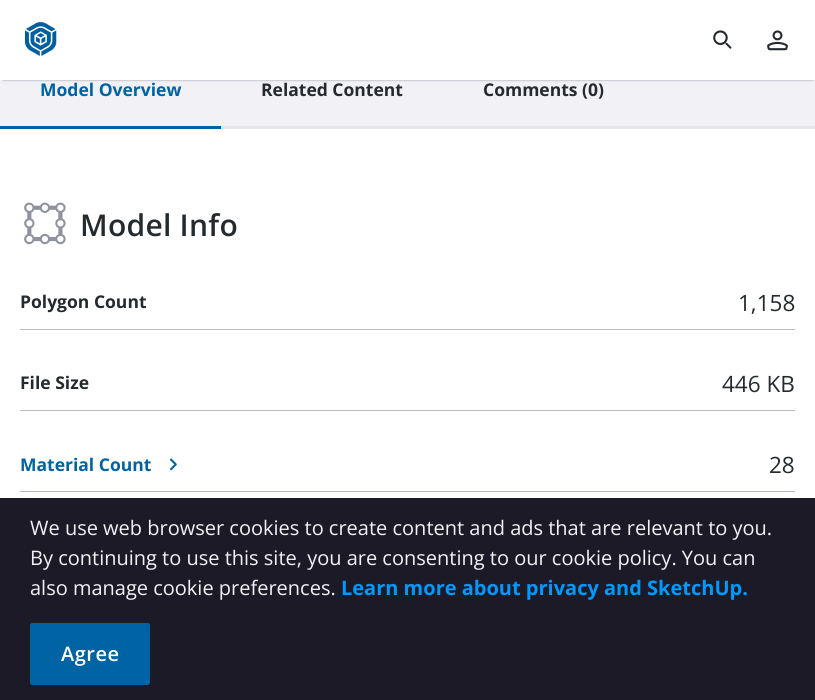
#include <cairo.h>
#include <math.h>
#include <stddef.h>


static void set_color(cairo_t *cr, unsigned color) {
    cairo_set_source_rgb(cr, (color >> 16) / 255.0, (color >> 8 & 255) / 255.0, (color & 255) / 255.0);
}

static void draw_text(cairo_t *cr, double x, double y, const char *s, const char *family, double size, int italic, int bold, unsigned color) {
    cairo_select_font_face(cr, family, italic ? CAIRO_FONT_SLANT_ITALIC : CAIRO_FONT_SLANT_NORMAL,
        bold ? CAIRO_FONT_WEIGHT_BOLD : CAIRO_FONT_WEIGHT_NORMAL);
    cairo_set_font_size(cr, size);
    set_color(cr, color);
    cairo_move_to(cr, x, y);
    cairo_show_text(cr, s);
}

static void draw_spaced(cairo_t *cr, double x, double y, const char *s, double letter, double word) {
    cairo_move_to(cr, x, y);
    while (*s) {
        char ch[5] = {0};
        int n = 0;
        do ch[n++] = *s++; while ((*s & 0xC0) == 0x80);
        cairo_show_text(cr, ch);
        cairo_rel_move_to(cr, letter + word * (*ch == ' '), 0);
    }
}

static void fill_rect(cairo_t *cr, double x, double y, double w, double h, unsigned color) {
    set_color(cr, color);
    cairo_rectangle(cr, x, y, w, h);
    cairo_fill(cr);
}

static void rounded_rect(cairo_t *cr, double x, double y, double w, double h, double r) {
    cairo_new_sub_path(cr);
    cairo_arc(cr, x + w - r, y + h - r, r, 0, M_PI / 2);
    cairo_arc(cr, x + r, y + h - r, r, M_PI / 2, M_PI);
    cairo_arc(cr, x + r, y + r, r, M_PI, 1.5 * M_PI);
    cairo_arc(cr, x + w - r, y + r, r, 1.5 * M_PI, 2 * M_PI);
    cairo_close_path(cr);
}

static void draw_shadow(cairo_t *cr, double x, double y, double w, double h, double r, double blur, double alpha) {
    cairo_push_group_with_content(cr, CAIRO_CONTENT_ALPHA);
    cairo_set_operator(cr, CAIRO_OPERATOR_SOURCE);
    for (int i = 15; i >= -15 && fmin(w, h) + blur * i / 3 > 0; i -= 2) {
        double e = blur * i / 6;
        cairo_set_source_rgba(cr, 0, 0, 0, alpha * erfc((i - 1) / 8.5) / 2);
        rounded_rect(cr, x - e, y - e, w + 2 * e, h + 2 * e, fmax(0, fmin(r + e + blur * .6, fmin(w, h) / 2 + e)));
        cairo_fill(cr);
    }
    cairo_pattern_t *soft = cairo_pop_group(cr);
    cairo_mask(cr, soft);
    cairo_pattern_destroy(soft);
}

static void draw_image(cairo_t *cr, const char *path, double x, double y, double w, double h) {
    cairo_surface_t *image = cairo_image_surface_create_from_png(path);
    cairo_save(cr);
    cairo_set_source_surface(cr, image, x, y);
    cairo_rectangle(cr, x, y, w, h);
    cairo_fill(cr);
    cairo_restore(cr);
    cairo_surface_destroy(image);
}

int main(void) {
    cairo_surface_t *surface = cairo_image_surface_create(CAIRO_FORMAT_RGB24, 815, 700);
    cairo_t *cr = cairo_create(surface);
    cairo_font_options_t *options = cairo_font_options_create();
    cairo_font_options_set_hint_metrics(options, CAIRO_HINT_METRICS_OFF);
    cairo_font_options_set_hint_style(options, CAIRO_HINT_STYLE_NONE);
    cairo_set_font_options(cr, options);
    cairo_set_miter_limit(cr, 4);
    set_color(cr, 0xF1F1F6);
    cairo_paint(cr);
    set_color(cr, 0x90939F);
    draw_shadow(cr, 3, 5, 810, 75, 0, 1, 1);
    fill_rect(cr, 0, 0, 815, 80, 0xFFFFFF);
    draw_image(cr, "assets/img1.png", 25, 22, 32, 34);
    draw_image(cr, "assets/img2.png", 713, 30, 19, 19);
    draw_image(cr, "assets/img3.png", 767, 30, 21, 21);
    fill_rect(cr, 644, 126, 171, 3, 0xE5E7EB);
    fill_rect(cr, 0, 126, 221, 3, 0x005F9E);
    draw_text(cr, 40, 96, "Model Overview", "Open Sans", 17.5, 0, 1, 0x0063A3);
    fill_rect(cr, 221, 126, 423, 3, 0xE5E7EB);
    draw_text(cr, 261, 96, "Related Content", "Open Sans", 17.5, 0, 1, 0x252A2E);
    draw_text(cr, 483, 96, "Comments (0)", "Open Sans", 17.5, 0, 1, 0x252A2E);
    fill_rect(cr, 0, 129, 815, 369, 0xFFFFFF);
    draw_image(cr, "assets/img4.png", 24, 202, 42, 43);
    cairo_select_font_face(cr, "Open Sans SemiBold", CAIRO_FONT_SLANT_NORMAL, CAIRO_FONT_WEIGHT_NORMAL);
    cairo_set_font_size(cr, 30);
    set_color(cr, 0x252A2E);
    draw_spaced(cr, 80, 236, "Model Info", 0.25, 0);
    fill_rect(cr, 20, 329, 775, 1, 0xB7B9C3);
    draw_text(cr, 20, 308, "Polygon Count", "Open Sans", 17.5, 0, 1, 0x252A2E);
    draw_text(cr, 738, 311, "1,158", "Open Sans", 22.5, 0, 0, 0x252A2E);
    fill_rect(cr, 20, 410, 775, 1, 0xB7B9C3);
    draw_text(cr, 20, 389, "File Size", "Open Sans", 17.5, 0, 1, 0x252A2E);
    draw_text(cr, 722, 392, "446 KB", "Open Sans", 22.5, 0, 0, 0x252A2E);
    fill_rect(cr, 20, 491, 775, 1, 0xB7B9C3);
    draw_text(cr, 20, 471, "Material Count", "Open Sans", 17.5, 0, 1, 0x0063A3);
    draw_image(cr, "assets/img5.png", 170, 458, 7, 13);
    draw_text(cr, 769, 473, "28", "Open Sans", 22.5, 0, 0, 0x252A2E);
    fill_rect(cr, 0, 498, 815, 202, 0x1B1A26);
    draw_text(cr, 30, 535, "We use web browser cookies to create content and ads that are relevant to you.", "Open Sans", 20, 0, 0, 0xF1F1F6);
    draw_text(cr, 30, 565, "By continuing to use this site, you are consenting to our cookie policy. You can", "Open Sans", 20, 0, 0, 0xF1F1F6);
    draw_text(cr, 30, 595, "also manage cookie preferences.", "Open Sans", 20, 0, 0, 0xF1F1F6);
    draw_text(cr, 341, 595, "Learn more about privacy and SketchUp.", "Open Sans", 20, 0, 1, 0x0099FE);
    set_color(cr, 0x0063A3);
    rounded_rect(cr, 30.5, 623.5, 119, 61, 2);
    cairo_fill_preserve(cr);
    cairo_set_line_width(cr, 1);
    cairo_stroke(cr);
    cairo_select_font_face(cr, "Open Sans SemiBold", CAIRO_FONT_SLANT_NORMAL, CAIRO_FONT_WEIGHT_NORMAL);
    set_color(cr, 0xFFFFFF);
    draw_spaced(cr, 61, 661, "Agree", 0.5, 0);
    cairo_surface_write_to_png(surface, "output.png");
    cairo_font_options_destroy(options);
    cairo_destroy(cr);
    cairo_surface_destroy(surface);
    return 0;
}
